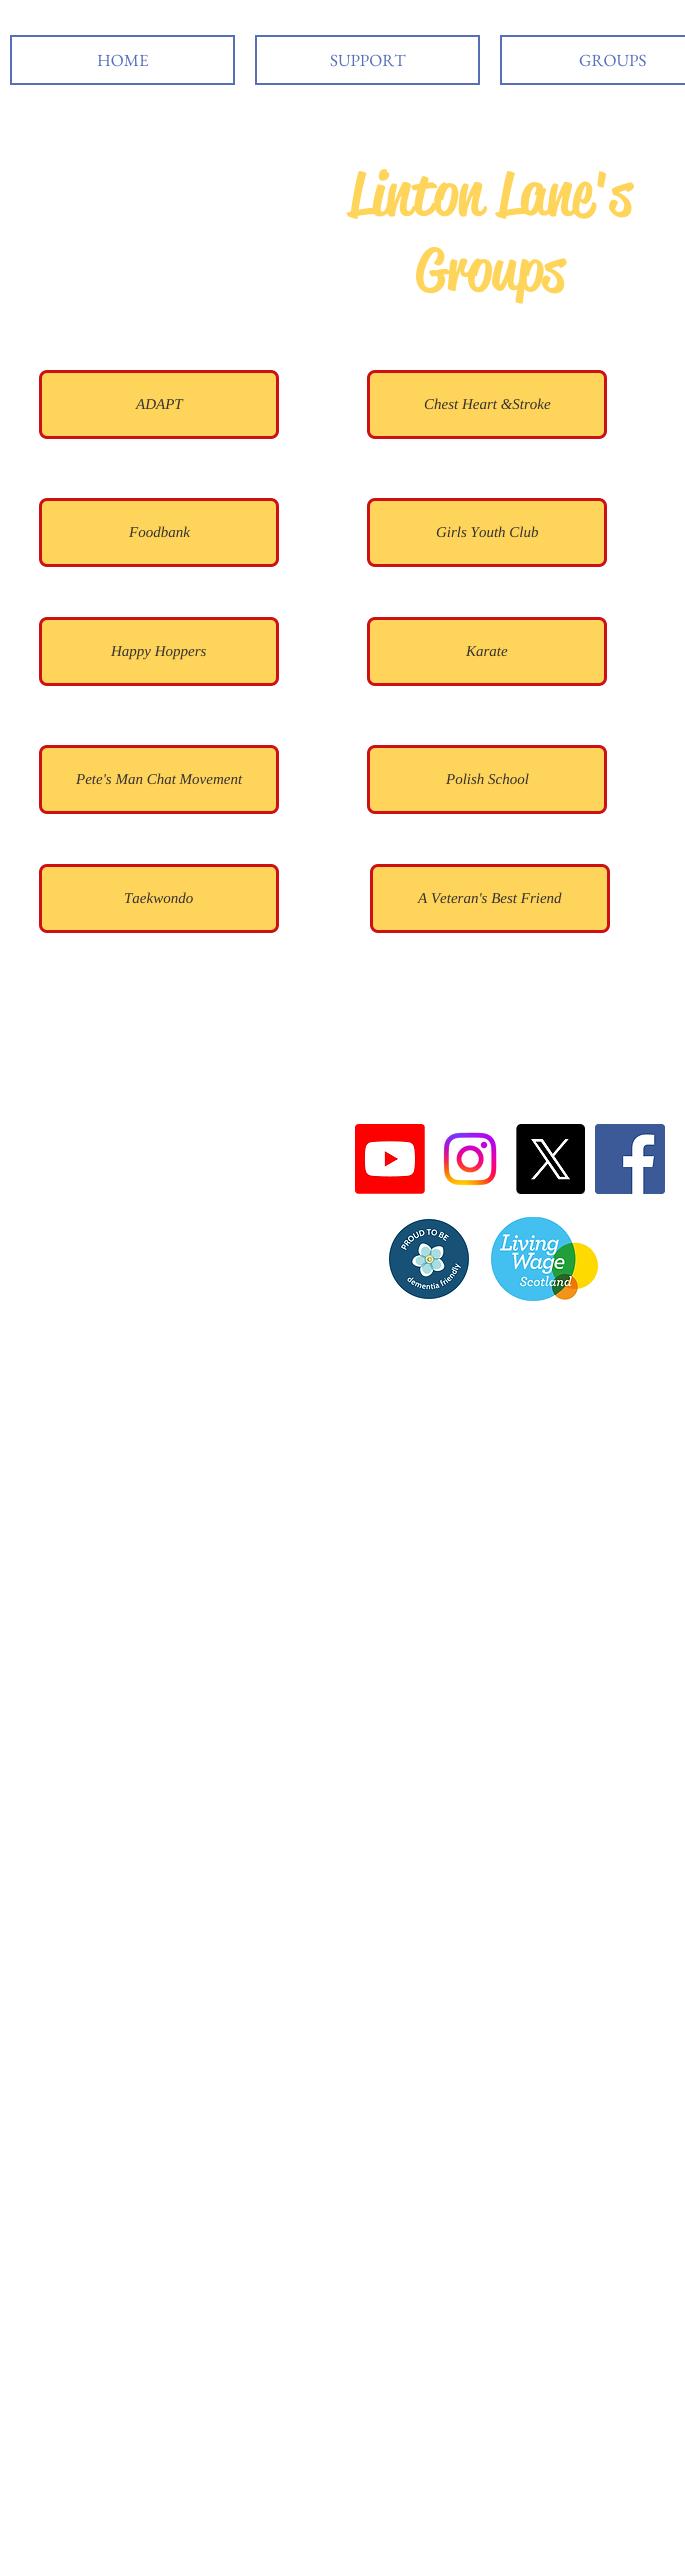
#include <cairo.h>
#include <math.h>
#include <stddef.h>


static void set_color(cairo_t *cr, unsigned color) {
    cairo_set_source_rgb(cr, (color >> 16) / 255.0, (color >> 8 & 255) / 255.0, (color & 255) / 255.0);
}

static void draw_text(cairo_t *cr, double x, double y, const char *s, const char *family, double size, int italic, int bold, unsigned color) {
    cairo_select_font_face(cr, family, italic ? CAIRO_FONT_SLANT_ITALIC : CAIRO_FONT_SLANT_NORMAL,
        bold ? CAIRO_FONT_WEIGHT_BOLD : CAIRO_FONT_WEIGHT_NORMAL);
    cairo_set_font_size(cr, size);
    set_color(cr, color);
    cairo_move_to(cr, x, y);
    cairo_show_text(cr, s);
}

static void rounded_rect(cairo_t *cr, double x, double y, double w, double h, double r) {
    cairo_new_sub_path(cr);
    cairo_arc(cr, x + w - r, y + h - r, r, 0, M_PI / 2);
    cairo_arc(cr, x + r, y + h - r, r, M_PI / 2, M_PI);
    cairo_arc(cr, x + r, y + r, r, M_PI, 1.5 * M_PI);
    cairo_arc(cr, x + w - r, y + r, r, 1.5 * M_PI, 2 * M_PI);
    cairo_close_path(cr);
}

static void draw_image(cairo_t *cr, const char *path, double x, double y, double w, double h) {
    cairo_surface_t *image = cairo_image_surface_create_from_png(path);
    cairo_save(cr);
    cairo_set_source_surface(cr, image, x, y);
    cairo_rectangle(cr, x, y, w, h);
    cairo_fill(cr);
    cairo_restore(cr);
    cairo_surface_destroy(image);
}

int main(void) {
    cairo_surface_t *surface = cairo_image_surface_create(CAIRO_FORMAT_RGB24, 685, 2567);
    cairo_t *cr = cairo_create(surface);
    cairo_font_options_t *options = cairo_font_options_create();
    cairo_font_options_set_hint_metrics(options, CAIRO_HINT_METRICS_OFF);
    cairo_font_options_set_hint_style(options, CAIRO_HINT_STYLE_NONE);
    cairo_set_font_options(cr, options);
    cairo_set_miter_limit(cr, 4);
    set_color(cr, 0xFFFFFF);
    cairo_paint(cr);
    cairo_rectangle(cr, 11, 36, 223, 48);
    set_color(cr, 0x566FB8);
    cairo_stroke(cr);
    draw_text(cr, 97, 66, "HOME", "EB Garamond", 17, 0, 0, 0x566FB8);
    cairo_rectangle(cr, 256, 36, 223, 48);
    cairo_stroke(cr);
    draw_text(cr, 330, 66, "SUPPORT", "EB Garamond", 17, 0, 0, 0x566FB8);
    cairo_rectangle(cr, 501, 36, 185, 48);
    cairo_stroke(cr);
    draw_text(cr, 579, 66, "GROUPS", "EB Garamond", 17, 0, 0, 0x566FB8);
    draw_text(cr, 348, 214, "Linton Lane's", "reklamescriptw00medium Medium", 60, 0, 0, 0xFFD45A);
    draw_text(cr, 416, 290, "Groups", "reklamescriptw00medium Medium", 60, 0, 0, 0xFFD45A);
    rounded_rect(cr, 40.5, 371.5, 237, 66, 6.5);
    cairo_fill_preserve(cr);
    set_color(cr, 0xCC1013);
    cairo_set_line_width(cr, 3);
    cairo_stroke(cr);
    draw_text(cr, 136, 409, "ADAPT", "Liberation Serif", 15, 1, 0, 0x353131);
    set_color(cr, 0xFFD45A);
    rounded_rect(cr, 368.5, 371.5, 237, 66, 6.5);
    cairo_fill_preserve(cr);
    set_color(cr, 0xCC1013);
    cairo_stroke(cr);
    draw_text(cr, 424, 409, "Chest Heart &Stroke", "Liberation Serif", 15, 1, 0, 0x353131);
    set_color(cr, 0xFFD45A);
    rounded_rect(cr, 40.5, 499.5, 237, 66, 6.5);
    cairo_fill_preserve(cr);
    set_color(cr, 0xCC1013);
    cairo_stroke(cr);
    draw_text(cr, 129, 537, "Foodbank", "Liberation Serif", 15, 1, 0, 0x353131);
    set_color(cr, 0xFFD45A);
    rounded_rect(cr, 368.5, 499.5, 237, 66, 6.5);
    cairo_fill_preserve(cr);
    set_color(cr, 0xCC1013);
    cairo_stroke(cr);
    draw_text(cr, 436, 537, "Girls Youth Club", "Liberation Serif", 15, 1, 0, 0x353131);
    set_color(cr, 0xFFD45A);
    rounded_rect(cr, 40.5, 618.5, 237, 66, 6.5);
    cairo_fill_preserve(cr);
    set_color(cr, 0xCC1013);
    cairo_stroke(cr);
    draw_text(cr, 111, 656, "Happy Hoppers", "Liberation Serif", 15, 1, 0, 0x353131);
    set_color(cr, 0xFFD45A);
    rounded_rect(cr, 368.5, 618.5, 237, 66, 6.5);
    cairo_fill_preserve(cr);
    set_color(cr, 0xCC1013);
    cairo_stroke(cr);
    draw_text(cr, 466, 656, "Karate", "Liberation Serif", 15, 1, 0, 0x353131);
    set_color(cr, 0xFFD45A);
    rounded_rect(cr, 40.5, 746.5, 237, 66, 6.5);
    cairo_fill_preserve(cr);
    set_color(cr, 0xCC1013);
    cairo_stroke(cr);
    draw_text(cr, 76, 784, "Pete's Man Chat Movement", "Liberation Serif", 15, 1, 0, 0x353131);
    set_color(cr, 0xFFD45A);
    rounded_rect(cr, 368.5, 746.5, 237, 66, 6.5);
    cairo_fill_preserve(cr);
    set_color(cr, 0xCC1013);
    cairo_stroke(cr);
    draw_text(cr, 446, 784, "Polish School", "Liberation Serif", 15, 1, 0, 0x353131);
    set_color(cr, 0xFFD45A);
    rounded_rect(cr, 40.5, 865.5, 237, 66, 6.5);
    cairo_fill_preserve(cr);
    set_color(cr, 0xCC1013);
    cairo_stroke(cr);
    draw_text(cr, 124, 903, "Taekwondo", "Liberation Serif", 15, 1, 0, 0x353131);
    set_color(cr, 0xFFD45A);
    rounded_rect(cr, 371.5, 865.5, 237, 66, 6.5);
    cairo_fill_preserve(cr);
    set_color(cr, 0xCC1013);
    cairo_stroke(cr);
    draw_text(cr, 418, 903, "A Veteran's Best Friend", "Liberation Serif", 15, 1, 0, 0x353131);
    draw_image(cr, "assets/img1.png", 355, 1124, 70, 70);
    draw_image(cr, "assets/img2.png", 443, 1132, 54, 54);
    draw_image(cr, "assets/img3.png", 516, 1124, 69, 70);
    draw_image(cr, "assets/img4.png", 595, 1124, 70, 70);
    draw_image(cr, "assets/img5.png", 387, 1217, 84, 84);
    draw_image(cr, "assets/img6.png", 491, 1217, 107, 84);
    cairo_surface_write_to_png(surface, "output.png");
    cairo_font_options_destroy(options);
    cairo_destroy(cr);
    cairo_surface_destroy(surface);
    return 0;
}
